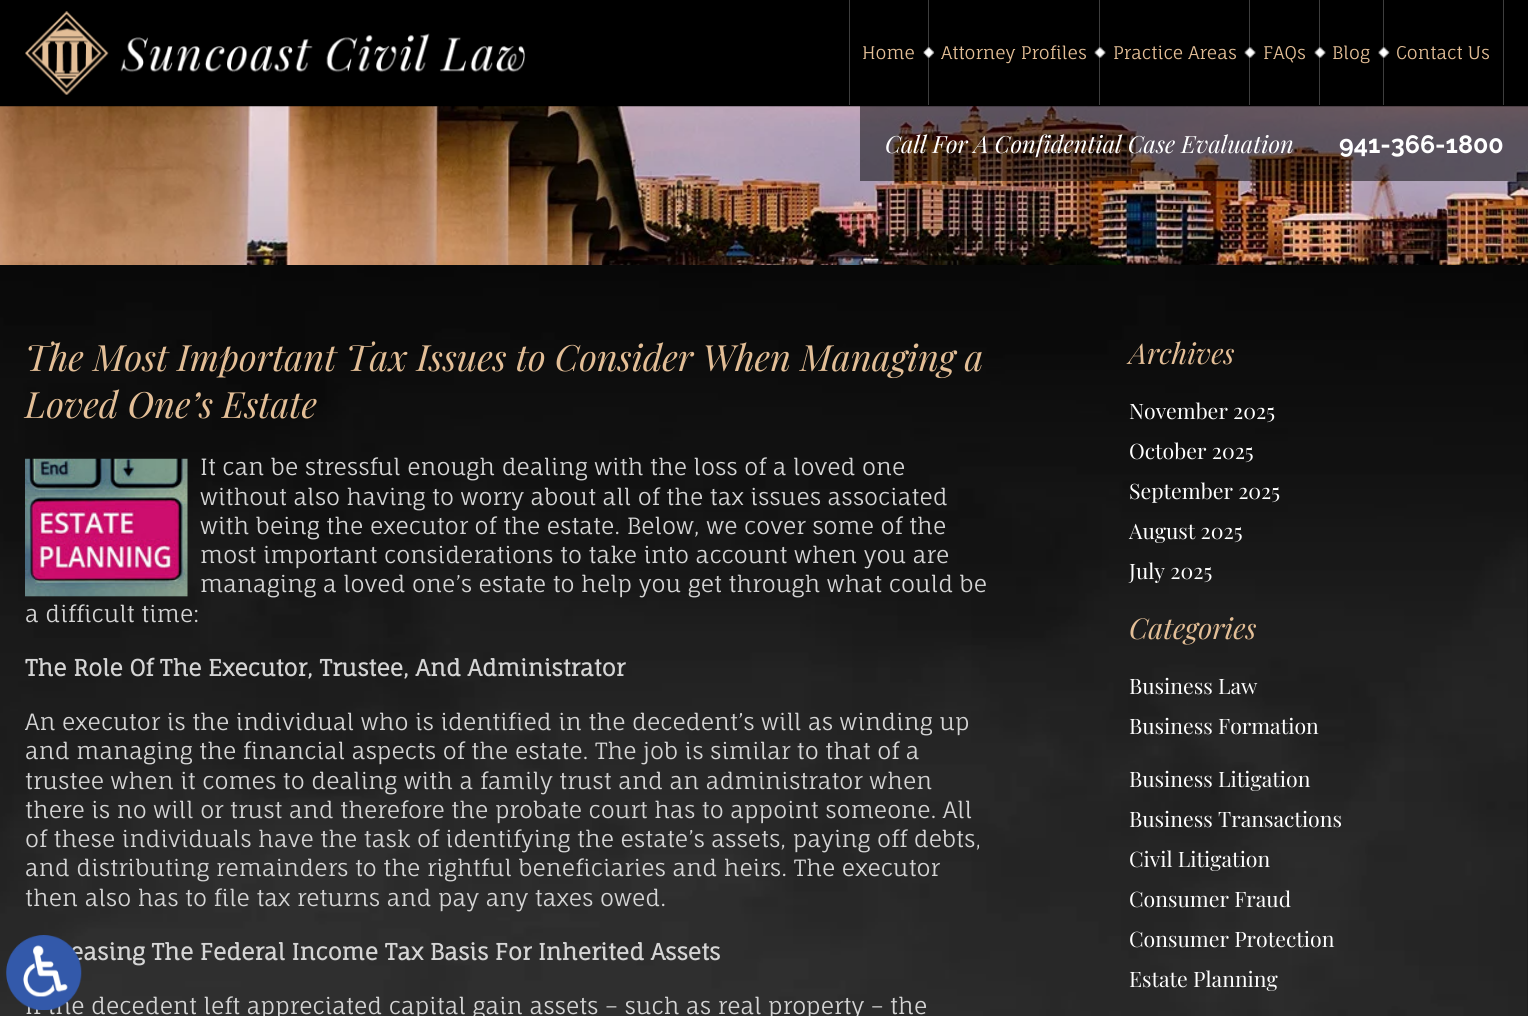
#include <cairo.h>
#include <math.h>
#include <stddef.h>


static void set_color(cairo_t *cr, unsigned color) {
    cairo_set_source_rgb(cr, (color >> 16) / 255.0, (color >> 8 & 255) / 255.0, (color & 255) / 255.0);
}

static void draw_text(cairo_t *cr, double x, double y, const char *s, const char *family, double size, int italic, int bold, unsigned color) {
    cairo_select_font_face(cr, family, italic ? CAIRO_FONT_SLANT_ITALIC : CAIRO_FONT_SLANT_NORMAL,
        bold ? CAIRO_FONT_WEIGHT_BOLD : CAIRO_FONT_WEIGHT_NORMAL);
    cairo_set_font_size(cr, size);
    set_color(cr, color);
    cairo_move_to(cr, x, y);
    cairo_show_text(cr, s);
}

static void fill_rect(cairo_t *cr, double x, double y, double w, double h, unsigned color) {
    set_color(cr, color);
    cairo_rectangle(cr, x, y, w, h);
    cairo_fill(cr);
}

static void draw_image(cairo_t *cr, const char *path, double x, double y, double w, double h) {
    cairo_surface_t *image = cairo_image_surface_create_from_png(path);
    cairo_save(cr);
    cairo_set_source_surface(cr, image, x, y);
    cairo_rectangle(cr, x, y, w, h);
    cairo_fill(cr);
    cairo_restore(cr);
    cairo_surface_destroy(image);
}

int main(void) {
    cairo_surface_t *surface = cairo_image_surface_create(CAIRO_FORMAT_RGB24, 1528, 1016);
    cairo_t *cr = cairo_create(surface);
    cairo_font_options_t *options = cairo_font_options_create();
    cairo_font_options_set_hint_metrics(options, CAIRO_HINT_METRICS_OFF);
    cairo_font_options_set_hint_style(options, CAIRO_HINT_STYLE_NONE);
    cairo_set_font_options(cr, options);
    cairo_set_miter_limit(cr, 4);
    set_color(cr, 0x000000);
    cairo_paint(cr);
    draw_image(cr, "assets/img1.png", 25, 11, 500, 84);
    fill_rect(cr, 928, 0, 1, 105, 0x3E3E3E);
    fill_rect(cr, 849, 0, 1, 105, 0x3E3E3E);
    draw_text(cr, 862, 59, "Home", "Fauna One", 17.5, 0, 0, 0xE3BE96);
    fill_rect(cr, 1099, 0, 1, 105, 0x3E3E3E);
    draw_image(cr, "assets/img2.png", 923, 47, 12, 11);
    draw_text(cr, 941, 59, "Attorney Profiles", "Fauna One", 17.5, 0, 0, 0xE3BE96);
    fill_rect(cr, 1249, 0, 1, 105, 0x3E3E3E);
    draw_image(cr, "assets/img3.png", 1094, 47, 12, 11);
    draw_text(cr, 1113, 59, "Practice Areas", "Fauna One", 17.5, 0, 0, 0xE3BE96);
    fill_rect(cr, 1319, 0, 1, 105, 0x3E3E3E);
    draw_image(cr, "assets/img3.png", 1244, 47, 12, 11);
    draw_text(cr, 1263, 59, "FAQs", "Fauna One", 17.5, 0, 0, 0xE3BE96);
    fill_rect(cr, 1383, 0, 1, 105, 0x3E3E3E);
    draw_image(cr, "assets/img3.png", 1314, 47, 12, 11);
    draw_text(cr, 1332, 59, "Blog", "Fauna One", 17.5, 0, 0, 0xE3BE96);
    fill_rect(cr, 1503, 0, 1, 105, 0x3E3E3E);
    draw_image(cr, "assets/img4.png", 1378, 47, 12, 11);
    draw_text(cr, 1396, 59, "Contact Us", "Fauna One", 17.5, 0, 0, 0xE3BE96);
    draw_image(cr, "assets/img5.png", 0, 106, 1528, 159);
    cairo_set_source_rgba(cr, 0, 0, 0, 0.5);
    cairo_rectangle(cr, 860, 106, 668, 75);
    cairo_fill(cr);
    draw_text(cr, 885, 153, "Call For A Confidential Case Evaluation", "Playfair Display", 23.75, 1, 0, 0xFFFFFF);
    draw_text(cr, 1339, 153, "941-366-1800", "Raleway Thin", 25, 0, 0, 0xFFFFFF);
    draw_image(cr, "assets/img6.png", 0, 265, 1528, 751);
    draw_text(cr, 25, 371, "The Most Important Tax Issues to Consider When Managing a", "Playfair Display", 36.25, 1, 0, 0xE3BE96);
    draw_text(cr, 25, 418, "Loved One’s Estate", "Playfair Display", 36.25, 1, 0, 0xE3BE96);
    draw_text(cr, 200, 475, "It can be stressful enough dealing with the loss of a loved one", "Fauna One", 22.5, 0, 0, 0xD5D5D5);
    draw_text(cr, 200, 505, "without also having to worry about all of the tax issues associated", "Fauna One", 22.5, 0, 0, 0xD5D5D5);
    draw_text(cr, 200, 534, "with being the executor of the estate. Below, we cover some of the", "Fauna One", 22.5, 0, 0, 0xD5D5D5);
    draw_text(cr, 200, 563, "most important considerations to take into account when you are", "Fauna One", 22.5, 0, 0, 0xD5D5D5);
    draw_text(cr, 200, 592, "managing a loved one’s estate to help you get through what could be", "Fauna One", 22.5, 0, 0, 0xD5D5D5);
    draw_text(cr, 25, 622, "a difficult time:", "Fauna One", 22.5, 0, 0, 0xD5D5D5);
    draw_image(cr, "assets/img7.png", 25, 458, 163, 139);
    draw_text(cr, 25, 676, "The Role Of The Executor, Trustee, And Administrator", "Fauna One", 22.5, 0, 1, 0xD5D5D5);
    draw_text(cr, 25, 730, "An executor is the individual who is identified in the decedent’s will as winding up", "Fauna One", 22.5, 0, 0, 0xD5D5D5);
    draw_text(cr, 25, 759, "and managing the financial aspects of the estate. The job is similar to that of a", "Fauna One", 22.5, 0, 0, 0xD5D5D5);
    draw_text(cr, 25, 789, "trustee when it comes to dealing with a family trust and an administrator when", "Fauna One", 22.5, 0, 0, 0xD5D5D5);
    draw_text(cr, 25, 818, "there is no will or trust and therefore the probate court has to appoint someone. All", "Fauna One", 22.5, 0, 0, 0xD5D5D5);
    draw_text(cr, 25, 847, "of these individuals have the task of identifying the estate’s assets, paying off debts,", "Fauna One", 22.5, 0, 0, 0xD5D5D5);
    draw_text(cr, 25, 876, "and distributing remainders to the rightful beneficiaries and heirs. The executor", "Fauna One", 22.5, 0, 0, 0xD5D5D5);
    draw_text(cr, 25, 906, "then also has to file tax returns and pay any taxes owed.", "Fauna One", 22.5, 0, 0, 0xD5D5D5);
    draw_text(cr, 70, 960, "easing The Federal Income Tax Basis For Inherited Assets", "Fauna One", 22.5, 0, 1, 0xD5D5D5);
    draw_text(cr, 25, 1014, "If the decedent left appreciated capital gain assets – such as real property – the", "Fauna One", 22.5, 0, 0, 0xD5D5D5);
    draw_text(cr, 1129, 364, "Archives", "Playfair Display", 28.75, 1, 0, 0xE3BE96);
    draw_text(cr, 1129, 419, "November 2025", "Playfair Display", 21.25, 0, 0, 0xFFFFFF);
    draw_text(cr, 1129, 459, "October 2025", "Playfair Display", 21.25, 0, 0, 0xFFFFFF);
    draw_text(cr, 1129, 499, "September 2025", "Playfair Display", 21.25, 0, 0, 0xFFFFFF);
    draw_text(cr, 1129, 539, "August 2025", "Playfair Display", 21.25, 0, 0, 0xFFFFFF);
    draw_text(cr, 1129, 579, "July 2025", "Playfair Display", 21.25, 0, 0, 0xFFFFFF);
    draw_text(cr, 1129, 639, "Categories", "Playfair Display", 28.75, 1, 0, 0xE3BE96);
    draw_text(cr, 1129, 694, "Business Law", "Playfair Display", 21.25, 0, 0, 0xFFFFFF);
    draw_text(cr, 1129, 734, "Business Formation", "Playfair Display", 21.25, 0, 0, 0xFFFFFF);
    draw_text(cr, 1129, 787, "Business Litigation", "Playfair Display", 21.25, 0, 0, 0xFFFFFF);
    draw_text(cr, 1129, 827, "Business Transactions", "Playfair Display", 21.25, 0, 0, 0xFFFFFF);
    draw_text(cr, 1129, 867, "Civil Litigation", "Playfair Display", 21.25, 0, 0, 0xFFFFFF);
    draw_text(cr, 1129, 907, "Consumer Fraud", "Playfair Display", 21.25, 0, 0, 0xFFFFFF);
    draw_text(cr, 1129, 947, "Consumer Protection", "Playfair Display", 21.25, 0, 0, 0xFFFFFF);
    draw_text(cr, 1129, 987, "Estate Planning", "Playfair Display", 21.25, 0, 0, 0xFFFFFF);
    draw_image(cr, "assets/img8.png", 6, 935, 76, 75);
    cairo_surface_write_to_png(surface, "output.png");
    cairo_font_options_destroy(options);
    cairo_destroy(cr);
    cairo_surface_destroy(surface);
    return 0;
}
